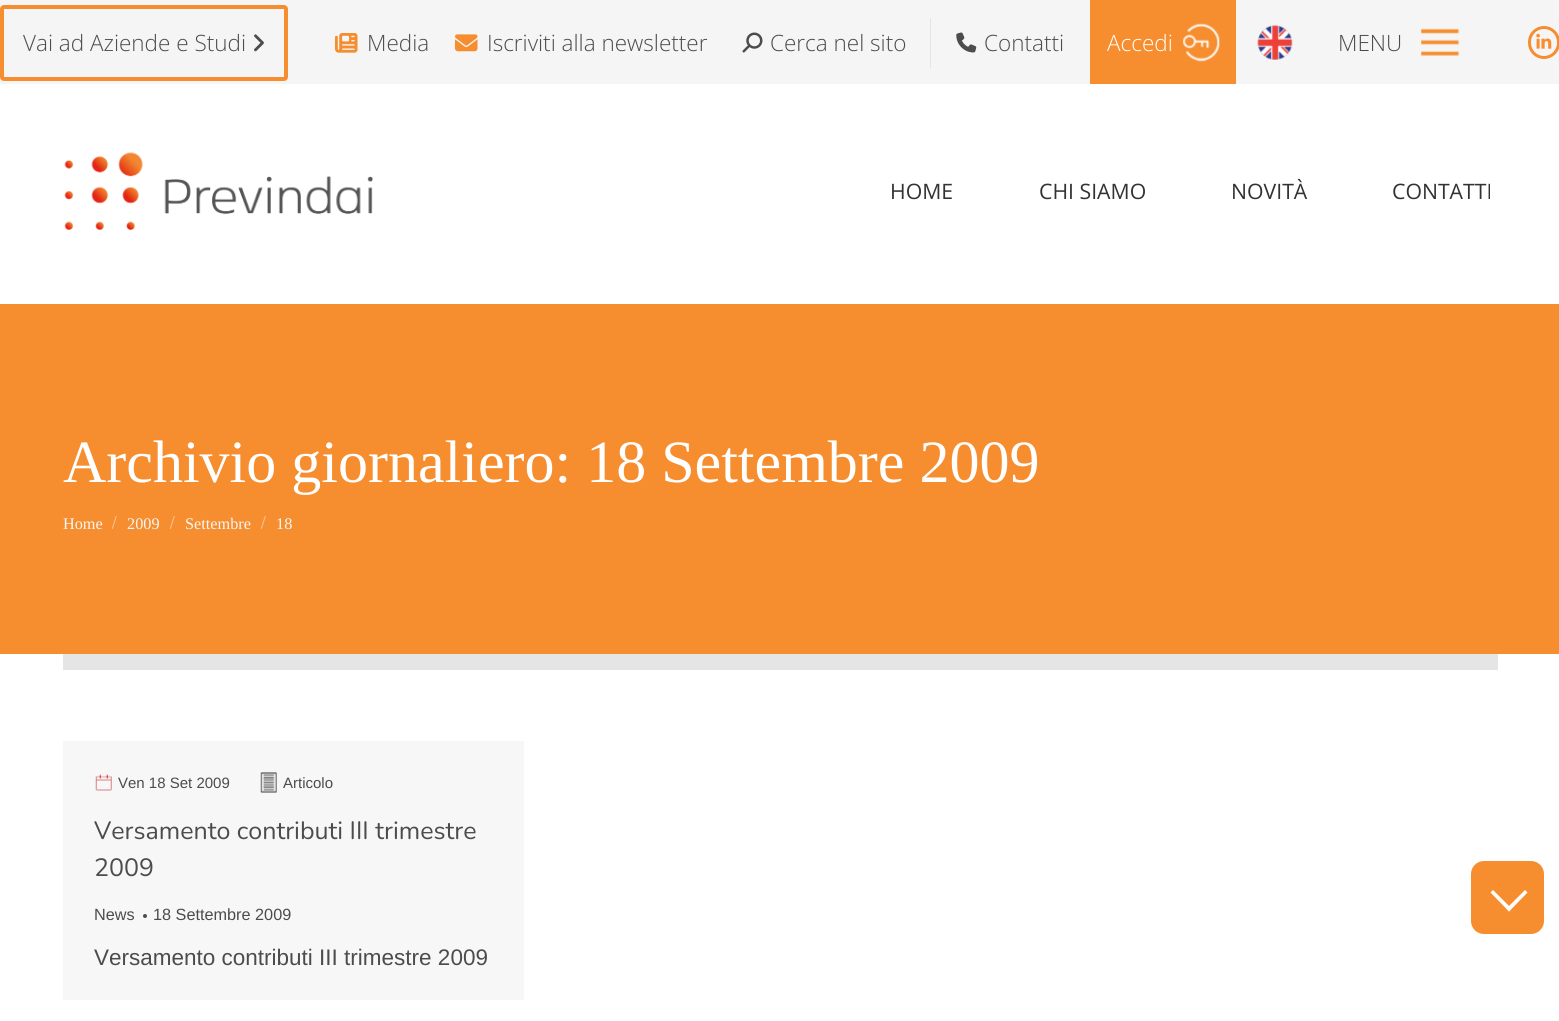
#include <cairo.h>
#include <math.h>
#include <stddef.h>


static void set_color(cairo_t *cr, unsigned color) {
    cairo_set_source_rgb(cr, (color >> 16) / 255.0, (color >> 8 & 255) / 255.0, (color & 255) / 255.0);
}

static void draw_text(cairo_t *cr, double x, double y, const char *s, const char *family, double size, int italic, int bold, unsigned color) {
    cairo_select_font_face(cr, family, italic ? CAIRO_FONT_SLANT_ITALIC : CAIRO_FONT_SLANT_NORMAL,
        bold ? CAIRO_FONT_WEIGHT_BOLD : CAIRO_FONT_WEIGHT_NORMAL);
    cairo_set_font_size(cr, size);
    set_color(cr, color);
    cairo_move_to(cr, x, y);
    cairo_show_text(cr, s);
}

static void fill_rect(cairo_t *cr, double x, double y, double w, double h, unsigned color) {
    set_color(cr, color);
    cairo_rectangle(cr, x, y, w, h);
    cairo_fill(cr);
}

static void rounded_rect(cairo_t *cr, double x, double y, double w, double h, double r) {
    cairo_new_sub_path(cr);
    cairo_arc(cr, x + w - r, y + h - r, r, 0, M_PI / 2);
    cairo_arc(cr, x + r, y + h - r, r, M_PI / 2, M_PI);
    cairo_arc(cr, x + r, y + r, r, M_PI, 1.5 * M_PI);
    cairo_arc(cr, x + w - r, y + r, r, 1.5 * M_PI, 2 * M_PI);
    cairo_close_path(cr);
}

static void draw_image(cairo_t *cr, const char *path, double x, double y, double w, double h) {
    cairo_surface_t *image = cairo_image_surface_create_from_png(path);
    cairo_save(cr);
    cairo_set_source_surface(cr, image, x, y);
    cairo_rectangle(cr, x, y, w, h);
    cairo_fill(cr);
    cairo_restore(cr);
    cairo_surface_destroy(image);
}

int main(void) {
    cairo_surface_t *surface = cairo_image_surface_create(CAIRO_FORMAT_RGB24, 1559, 1021);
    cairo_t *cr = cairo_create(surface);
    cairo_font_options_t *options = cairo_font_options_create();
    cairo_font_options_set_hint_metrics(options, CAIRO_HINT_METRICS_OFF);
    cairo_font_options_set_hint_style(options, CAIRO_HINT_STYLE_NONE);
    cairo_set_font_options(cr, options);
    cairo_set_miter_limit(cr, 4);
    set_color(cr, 0xFFFFFF);
    cairo_paint(cr);
    fill_rect(cr, 0, 0, 1559, 84, 0xF5F5F5);
    rounded_rect(cr, 2, 7, 284, 72, 2);
    set_color(cr, 0xF68D2E);
    cairo_set_line_width(cr, 4);
    cairo_stroke(cr);
    draw_text(cr, 23, 51, "Vai ad Aziende e Studi", "Open Sans Light", 22.5, 0, 0, 0x4C4C4C);
    draw_image(cr, "assets/img1.png", 254, 34, 10, 18);
    draw_image(cr, "assets/img2.png", 335, 33, 23, 20);
    draw_text(cr, 367, 51, "Media", "Open Sans Light", 22.5, 0, 0, 0x4C4C4C);
    draw_image(cr, "assets/img3.png", 455, 34, 23, 18);
    draw_text(cr, 487, 51, "Iscriviti alla newsletter", "Open Sans Light", 22.5, 0, 0, 0x4C4C4C);
    fill_rect(cr, 930, 18, 1, 50, 0xE5E5E5);
    draw_image(cr, "assets/img4.png", 742, 32, 21, 21);
    draw_text(cr, 770, 51, "Cerca nel sito", "Open Sans Light", 22.5, 0, 0, 0x4C4C4C);
    draw_image(cr, "assets/img5.png", 956, 32, 21, 21);
    draw_text(cr, 984, 51, "Contatti", "Open Sans Light", 22.5, 0, 0, 0x4C4C4C);
    fill_rect(cr, 1090, 0, 146, 84, 0xF68D2E);
    draw_text(cr, 1107, 51, "Accedi", "Open Sans Light", 22.5, 0, 0, 0xFFFFFF);
    draw_image(cr, "assets/img6.png", 1183, 23, 37, 39);
    draw_image(cr, "assets/img7.png", 1257, 24, 36, 37);
    draw_text(cr, 1338, 51, "MENU", "Open Sans Light", 22.5, 0, 0, 0x4C4C4C);
    draw_image(cr, "assets/img8.png", 1421, 28, 39, 28);
    rounded_rect(cr, 1529.5, 27.5, 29, 30, 14.5);
    set_color(cr, 0xF68D2E);
    cairo_set_line_width(cr, 3);
    cairo_stroke(cr);
    draw_image(cr, "assets/img9.png", 1536, 33, 16, 16);
    draw_image(cr, "assets/img10.png", 64, 152, 309, 78);
    draw_text(cr, 890, 199, "HOME", "Open Sans", 21.25, 0, 0, 0x333333);
    draw_text(cr, 1039, 199, "CHI SIAMO", "Open Sans", 21.25, 0, 0, 0x333333);
    draw_text(cr, 1231, 199, "NOVITÀ", "Open Sans", 21.25, 0, 0, 0x333333);
    draw_text(cr, 1392, 199, "CONTATTI", "Open Sans", 21.25, 0, 0, 0x333333);
    fill_rect(cr, 0, 304, 1559, 350, 0xF68D2E);
    draw_text(cr, 63, 482, "Archivio giornaliero: 18 Settembre 2009", "Liberation Serif", 60, 0, 0, 0xFFFFFF);
    draw_text(cr, 63, 529, "Home", "Liberation Serif", 16.25, 0, 0, 0xF7F7F7);
    draw_text(cr, 112, 528, "/", "Nunito", 16.25, 0, 0, 0xF7C293);
    draw_text(cr, 127, 529, "2009", "Liberation Serif", 16.25, 0, 0, 0xF7F7F7);
    draw_text(cr, 170, 528, "/", "Nunito", 16.25, 0, 0, 0xF7C293);
    draw_text(cr, 185, 529, "Settembre", "Liberation Serif", 16.25, 0, 0, 0xF7F7F7);
    draw_text(cr, 261, 528, "/", "Nunito", 16.25, 0, 0, 0xF7C293);
    draw_text(cr, 276, 529, "18", "Liberation Serif", 16.25, 0, 0, 0xF7F7F7);
    fill_rect(cr, 63, 654, 1435, 16, 0xE5E5E5);
    fill_rect(cr, 63, 741, 461, 259, 0xF7F7F7);
    draw_image(cr, "assets/img11.png", 95, 774, 17, 17);
    draw_text(cr, 118, 788, "Ven 18 Set 2009", "Liberation Sans", 15, 0, 0, 0x4C4C4C);
    draw_image(cr, "assets/img12.png", 260, 772, 17, 21);
    draw_text(cr, 283, 788, "Articolo", "Liberation Sans", 15, 0, 0, 0x4C4C4C);
    draw_text(cr, 94, 839, "Versamento contributi III trimestre", "Nunito", 25, 0, 0, 0x4C4C4C);
    draw_text(cr, 94, 876, "2009", "Nunito", 25, 0, 0, 0x4C4C4C);
    draw_text(cr, 94, 920, "News", "Liberation Sans", 16.25, 0, 0, 0x4C4C4C);
    cairo_new_path(cr);
    cairo_arc(cr, 145, 916, 2, 0, 2 * M_PI);
    cairo_fill(cr);
    draw_text(cr, 153, 920, "18 Settembre 2009", "Liberation Sans", 16.25, 0, 0, 0x4C4C4C);
    draw_text(cr, 94, 965, "Versamento contributi III trimestre 2009", "Liberation Sans", 22.5, 0, 0, 0x4C4C4C);
    set_color(cr, 0xF68D2E);
    rounded_rect(cr, 1471, 861, 73, 73, 13);
    cairo_fill(cr);
    set_color(cr, 0xFFFFFF);
    cairo_new_path(cr);
    cairo_move_to(cr, 1527.5, 892.5);
    cairo_line_to(cr, 1509, 911.5);
    cairo_line_to(cr, 1506.5, 908.5);
    cairo_line_to(cr, 1525, 890);
    cairo_close_path(cr);
    cairo_fill(cr);
    cairo_new_path(cr);
    cairo_move_to(cr, 1511.5, 908.5);
    cairo_line_to(cr, 1509, 911.5);
    cairo_line_to(cr, 1490.5, 892.5);
    cairo_line_to(cr, 1493, 890);
    cairo_close_path(cr);
    cairo_fill(cr);
    cairo_surface_write_to_png(surface, "output.png");
    cairo_font_options_destroy(options);
    cairo_destroy(cr);
    cairo_surface_destroy(surface);
    return 0;
}
